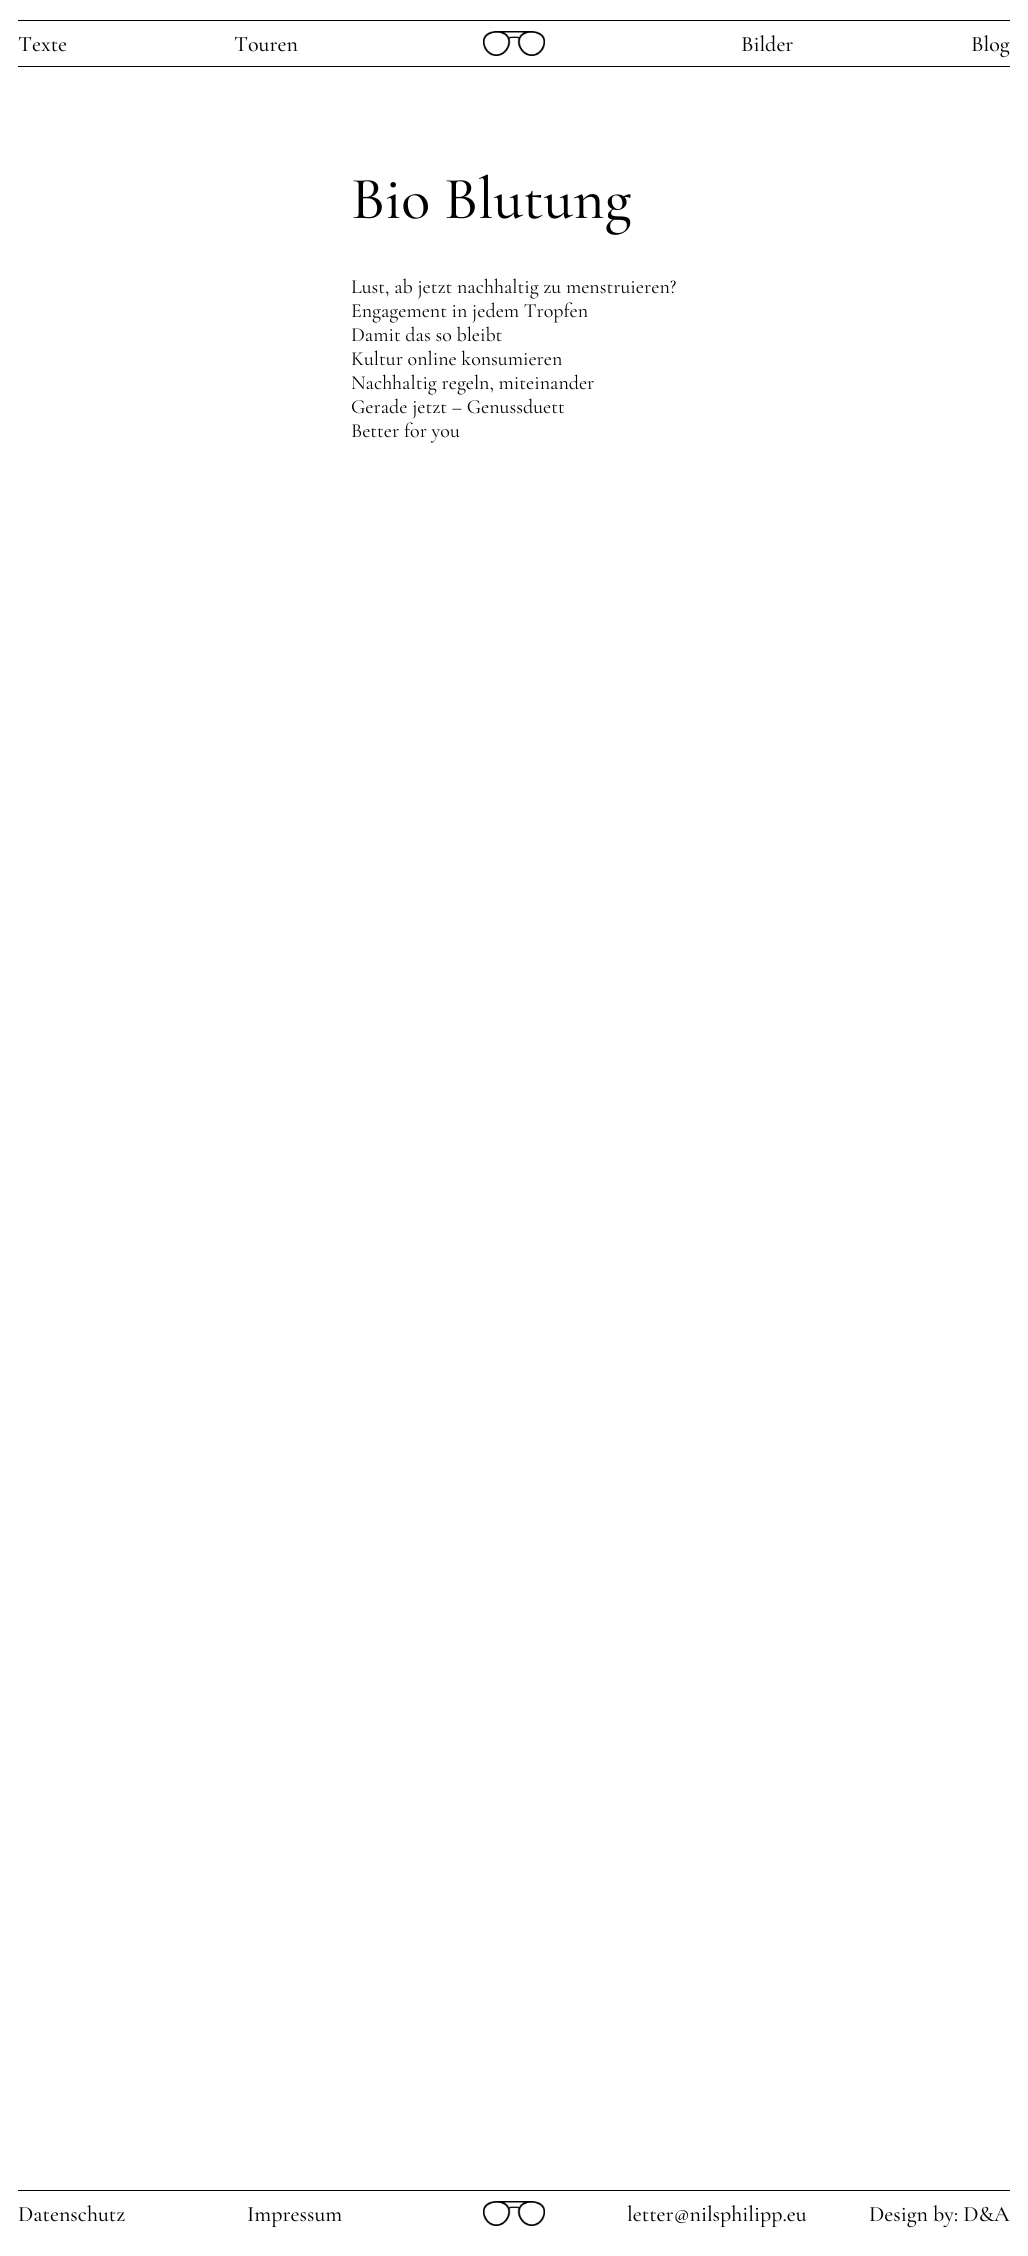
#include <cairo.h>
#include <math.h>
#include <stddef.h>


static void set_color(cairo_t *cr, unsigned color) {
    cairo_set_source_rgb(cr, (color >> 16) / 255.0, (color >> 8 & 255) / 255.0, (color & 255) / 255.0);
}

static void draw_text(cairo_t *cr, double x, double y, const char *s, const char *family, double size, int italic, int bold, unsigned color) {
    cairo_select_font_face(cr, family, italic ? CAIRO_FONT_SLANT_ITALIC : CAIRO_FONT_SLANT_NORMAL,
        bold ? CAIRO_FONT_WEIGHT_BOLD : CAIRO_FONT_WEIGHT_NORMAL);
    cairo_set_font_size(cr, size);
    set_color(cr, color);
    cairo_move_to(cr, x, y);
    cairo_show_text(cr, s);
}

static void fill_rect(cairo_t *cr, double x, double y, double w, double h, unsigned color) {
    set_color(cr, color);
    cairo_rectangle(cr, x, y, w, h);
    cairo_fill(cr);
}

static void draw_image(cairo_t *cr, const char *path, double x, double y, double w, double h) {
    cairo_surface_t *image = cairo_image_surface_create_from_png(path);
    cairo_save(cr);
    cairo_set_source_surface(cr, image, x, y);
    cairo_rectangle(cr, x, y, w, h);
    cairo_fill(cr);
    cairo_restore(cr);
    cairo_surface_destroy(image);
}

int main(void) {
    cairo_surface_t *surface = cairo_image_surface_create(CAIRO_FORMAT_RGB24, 1028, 2256);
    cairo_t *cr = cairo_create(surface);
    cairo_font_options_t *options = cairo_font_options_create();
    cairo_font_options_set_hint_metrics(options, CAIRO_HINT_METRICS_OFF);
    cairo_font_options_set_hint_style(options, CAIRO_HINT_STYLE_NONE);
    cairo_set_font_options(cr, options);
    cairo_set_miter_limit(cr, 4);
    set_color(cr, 0xFFFFFF);
    cairo_paint(cr);
    fill_rect(cr, 18, 20, 992, 1, 0x000000);
    fill_rect(cr, 18, 66, 992, 1, 0x000000);
    draw_text(cr, 18, 51, "Texte", "Cormorant Garamond Medium", 22, 0, 0, 0x000000);
    draw_text(cr, 234, 51, "Touren", "Cormorant Garamond Medium", 22, 0, 0, 0x000000);
    draw_image(cr, "assets/img1.png", 483, 31, 62, 25);
    draw_text(cr, 741, 51, "Bilder", "Cormorant Garamond Medium", 22, 0, 0, 0x000000);
    draw_text(cr, 971, 51, "Blog", "Cormorant Garamond Medium", 22, 0, 0, 0x000000);
    draw_text(cr, 351, 218, "Bio Blutung", "Cormorant Garamond Medium", 60, 0, 0, 0x000000);
    draw_text(cr, 351, 293, "Lust, ab jetzt nachhaltig zu menstruieren?", "Cormorant Garamond", 20, 0, 0, 0x000000);
    draw_text(cr, 351, 317, "Engagement in jedem Tropfen", "Cormorant Garamond", 20, 0, 0, 0x000000);
    draw_text(cr, 351, 341, "Damit das so bleibt", "Cormorant Garamond", 20, 0, 0, 0x000000);
    draw_text(cr, 351, 365, "Kultur online konsumieren", "Cormorant Garamond", 20, 0, 0, 0x000000);
    draw_text(cr, 351, 389, "Nachhaltig regeln, miteinander", "Cormorant Garamond", 20, 0, 0, 0x000000);
    draw_text(cr, 351, 413, "Gerade jetzt – Genussduett", "Cormorant Garamond", 20, 0, 0, 0x000000);
    draw_text(cr, 351, 437, "Better for you", "Cormorant Garamond", 20, 0, 0, 0x000000);
    fill_rect(cr, 18, 2190, 992, 1, 0x000000);
    draw_text(cr, 18, 2221, "Datenschutz", "Cormorant Garamond Medium", 22, 0, 0, 0x000000);
    draw_text(cr, 247, 2221, "Impressum", "Cormorant Garamond Medium", 22, 0, 0, 0x000000);
    draw_image(cr, "assets/img1.png", 483, 2201, 62, 25);
    draw_text(cr, 627, 2221, "letter@nilsphilipp.eu", "Cormorant Garamond Medium", 22, 0, 0, 0x000000);
    draw_text(cr, 869, 2221, "Design by: D&A", "Cormorant Garamond Medium", 22, 0, 0, 0x000000);
    cairo_surface_write_to_png(surface, "output.png");
    cairo_font_options_destroy(options);
    cairo_destroy(cr);
    cairo_surface_destroy(surface);
    return 0;
}
